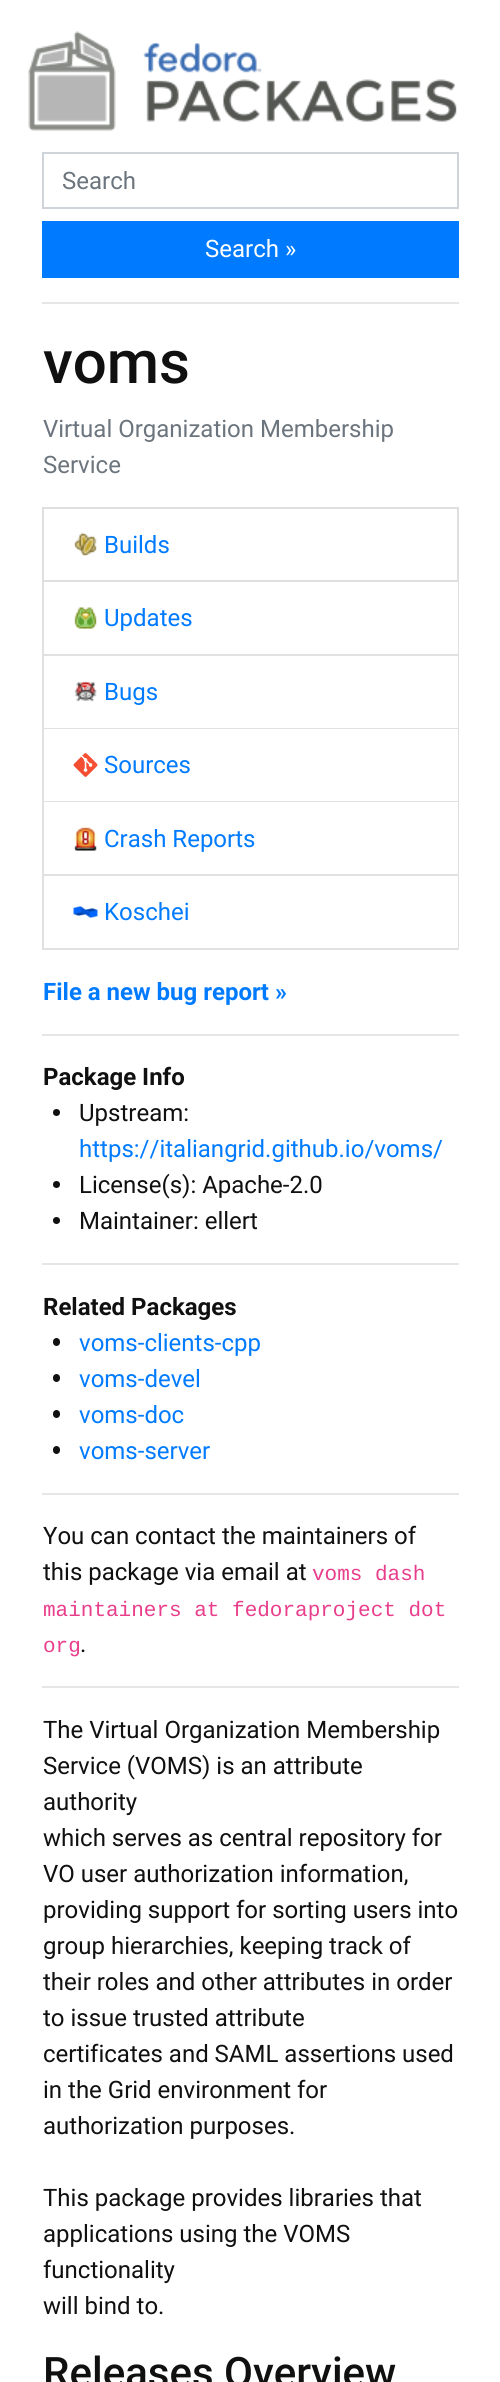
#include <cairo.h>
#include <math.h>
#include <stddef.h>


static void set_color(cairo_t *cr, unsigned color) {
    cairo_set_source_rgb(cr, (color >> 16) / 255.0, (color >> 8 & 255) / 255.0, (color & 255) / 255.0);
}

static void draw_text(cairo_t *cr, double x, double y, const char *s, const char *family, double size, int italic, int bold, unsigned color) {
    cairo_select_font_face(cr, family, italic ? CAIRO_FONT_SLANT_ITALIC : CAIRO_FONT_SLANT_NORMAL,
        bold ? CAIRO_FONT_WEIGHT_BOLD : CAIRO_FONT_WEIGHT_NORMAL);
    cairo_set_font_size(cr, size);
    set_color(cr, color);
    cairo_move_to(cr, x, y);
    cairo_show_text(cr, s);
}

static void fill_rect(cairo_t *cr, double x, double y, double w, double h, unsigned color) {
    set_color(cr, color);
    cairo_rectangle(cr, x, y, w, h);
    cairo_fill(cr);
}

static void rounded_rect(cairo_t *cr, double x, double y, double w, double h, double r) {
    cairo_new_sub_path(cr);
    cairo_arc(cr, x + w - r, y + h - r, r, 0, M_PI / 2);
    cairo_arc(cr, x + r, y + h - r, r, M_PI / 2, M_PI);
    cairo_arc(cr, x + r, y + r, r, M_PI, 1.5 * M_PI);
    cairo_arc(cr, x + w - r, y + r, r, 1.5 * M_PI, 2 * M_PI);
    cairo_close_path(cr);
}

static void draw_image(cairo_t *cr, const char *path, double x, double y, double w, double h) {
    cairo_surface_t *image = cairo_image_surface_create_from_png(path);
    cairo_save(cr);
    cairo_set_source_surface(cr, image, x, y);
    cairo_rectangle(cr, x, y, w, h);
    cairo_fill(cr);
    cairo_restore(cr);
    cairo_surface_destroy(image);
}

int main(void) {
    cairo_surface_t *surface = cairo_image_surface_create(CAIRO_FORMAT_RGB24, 500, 2382);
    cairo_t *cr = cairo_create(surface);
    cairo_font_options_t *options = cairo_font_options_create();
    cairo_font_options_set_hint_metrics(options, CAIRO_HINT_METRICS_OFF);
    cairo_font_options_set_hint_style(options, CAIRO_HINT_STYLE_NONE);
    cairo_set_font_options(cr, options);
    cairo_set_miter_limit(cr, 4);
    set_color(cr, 0xFFFFFF);
    cairo_paint(cr);
    draw_image(cr, "assets/img1.png", 28, 31, 429, 100);
    cairo_rectangle(cr, 43, 153, 415, 55);
    set_color(cr, 0xCED4DA);
    cairo_stroke(cr);
    draw_text(cr, 62, 189, "Search", "Roboto", 24, 0, 0, 0x6C757D);
    fill_rect(cr, 42, 221, 417, 57, 0x007BFF);
    draw_text(cr, 205, 257, "Search »", "Roboto", 24, 0, 0, 0xFFFFFF);
    fill_rect(cr, 42, 302, 417, 2, 0xE6E6E6);
    draw_text(cr, 43, 383, "voms", "Roboto Medium", 60, 0, 0, 0x101010);
    draw_text(cr, 43, 437, "Virtual Organization Membership", "Roboto", 24, 0, 0, 0x6C757D);
    draw_text(cr, 43, 473, "Service", "Roboto", 24, 0, 0, 0x6C757D);
    cairo_rectangle(cr, 43, 508, 415, 73);
    set_color(cr, 0xDFDFDF);
    cairo_stroke(cr);
    draw_image(cr, "assets/img2.png", 74, 532, 23, 24);
    draw_text(cr, 104, 553, "Builds", "Roboto", 24, 0, 0, 0x007BFF);
    set_color(cr, 0xDFDFDF);
    cairo_new_path(cr);
    cairo_move_to(cr, 459, 582);
    cairo_line_to(cr, 459, 656);
    cairo_line_to(cr, 458, 654);
    cairo_line_to(cr, 458, 582);
    cairo_close_path(cr);
    cairo_fill(cr);
    cairo_set_source_rgba(cr, 0, 0, 0, 0.12);
    cairo_new_path(cr);
    cairo_move_to(cr, 459, 656);
    cairo_line_to(cr, 42, 656);
    cairo_line_to(cr, 44, 654);
    cairo_line_to(cr, 458, 654);
    cairo_close_path(cr);
    cairo_fill(cr);
    cairo_new_path(cr);
    cairo_move_to(cr, 42, 656);
    cairo_line_to(cr, 42, 582);
    cairo_line_to(cr, 44, 582);
    cairo_line_to(cr, 44, 654);
    cairo_close_path(cr);
    cairo_fill(cr);
    draw_image(cr, "assets/img3.png", 74, 607, 23, 22);
    draw_text(cr, 104, 626, "Updates", "Roboto", 24, 0, 0, 0x007BFF);
    set_color(cr, 0xDFDFDF);
    cairo_new_path(cr);
    cairo_move_to(cr, 459, 656);
    cairo_line_to(cr, 459, 729);
    cairo_line_to(cr, 458, 728);
    cairo_line_to(cr, 458, 656);
    cairo_close_path(cr);
    cairo_fill(cr);
    cairo_set_source_rgba(cr, 0, 0, 0, 0.12);
    cairo_new_path(cr);
    cairo_move_to(cr, 459, 729);
    cairo_line_to(cr, 42, 729);
    cairo_line_to(cr, 44, 728);
    cairo_line_to(cr, 458, 728);
    cairo_close_path(cr);
    cairo_fill(cr);
    cairo_new_path(cr);
    cairo_move_to(cr, 42, 729);
    cairo_line_to(cr, 42, 656);
    cairo_line_to(cr, 44, 656);
    cairo_line_to(cr, 44, 728);
    cairo_close_path(cr);
    cairo_fill(cr);
    draw_image(cr, "assets/img4.png", 74, 681, 23, 21);
    draw_text(cr, 104, 700, "Bugs", "Roboto", 24, 0, 0, 0x007BFF);
    set_color(cr, 0xDFDFDF);
    cairo_new_path(cr);
    cairo_move_to(cr, 459, 729);
    cairo_line_to(cr, 459, 802);
    cairo_line_to(cr, 458, 801);
    cairo_line_to(cr, 458, 729);
    cairo_close_path(cr);
    cairo_fill(cr);
    cairo_set_source_rgba(cr, 0, 0, 0, 0.12);
    cairo_new_path(cr);
    cairo_move_to(cr, 459, 802);
    cairo_line_to(cr, 42, 802);
    cairo_line_to(cr, 44, 801);
    cairo_line_to(cr, 458, 801);
    cairo_close_path(cr);
    cairo_fill(cr);
    cairo_new_path(cr);
    cairo_move_to(cr, 42, 802);
    cairo_line_to(cr, 42, 729);
    cairo_line_to(cr, 44, 729);
    cairo_line_to(cr, 44, 801);
    cairo_close_path(cr);
    cairo_fill(cr);
    draw_image(cr, "assets/img5.png", 73, 753, 25, 24);
    draw_text(cr, 104, 773, "Sources", "Roboto", 24, 0, 0, 0x007BFF);
    set_color(cr, 0xDFDFDF);
    cairo_new_path(cr);
    cairo_move_to(cr, 459, 802);
    cairo_line_to(cr, 459, 876);
    cairo_line_to(cr, 458, 874);
    cairo_line_to(cr, 458, 802);
    cairo_close_path(cr);
    cairo_fill(cr);
    cairo_set_source_rgba(cr, 0, 0, 0, 0.12);
    cairo_new_path(cr);
    cairo_move_to(cr, 459, 876);
    cairo_line_to(cr, 42, 876);
    cairo_line_to(cr, 44, 874);
    cairo_line_to(cr, 458, 874);
    cairo_close_path(cr);
    cairo_fill(cr);
    cairo_new_path(cr);
    cairo_move_to(cr, 42, 876);
    cairo_line_to(cr, 42, 802);
    cairo_line_to(cr, 44, 802);
    cairo_line_to(cr, 44, 874);
    cairo_close_path(cr);
    cairo_fill(cr);
    draw_image(cr, "assets/img6.png", 73, 826, 25, 25);
    draw_text(cr, 104, 847, "Crash Reports", "Roboto", 24, 0, 0, 0x007BFF);
    set_color(cr, 0xDFDFDF);
    cairo_new_path(cr);
    cairo_move_to(cr, 459, 876);
    cairo_line_to(cr, 459, 950);
    cairo_line_to(cr, 458, 948);
    cairo_line_to(cr, 458, 876);
    cairo_close_path(cr);
    cairo_fill(cr);
    cairo_set_source_rgba(cr, 0, 0, 0, 0.12);
    cairo_new_path(cr);
    cairo_move_to(cr, 459, 950);
    cairo_line_to(cr, 42, 950);
    cairo_line_to(cr, 44, 948);
    cairo_line_to(cr, 458, 948);
    cairo_close_path(cr);
    cairo_fill(cr);
    cairo_new_path(cr);
    cairo_move_to(cr, 42, 950);
    cairo_line_to(cr, 42, 876);
    cairo_line_to(cr, 44, 876);
    cairo_line_to(cr, 44, 948);
    cairo_close_path(cr);
    cairo_fill(cr);
    draw_image(cr, "assets/img7.png", 73, 906, 25, 12);
    draw_text(cr, 104, 920, "Koschei", "Roboto", 24, 0, 0, 0x007BFF);
    draw_text(cr, 43, 1000, "File a new bug report »", "Roboto", 24, 0, 1, 0x007BFF);
    fill_rect(cr, 42, 1034, 417, 2, 0xE6E6E6);
    draw_text(cr, 43, 1085, "Package Info", "Roboto", 24, 0, 1, 0x101010);
    cairo_new_path(cr);
    cairo_arc(cr, 56.5, 1112.5, 3.5, 0, 2 * M_PI);
    cairo_fill(cr);
    draw_text(cr, 79, 1121, "Upstream:", "Roboto", 24, 0, 0, 0x101010);
    draw_text(cr, 79, 1157, "https://italiangrid.github.io/voms/", "Roboto", 24, 0, 0, 0x007BFF);
    set_color(cr, 0x101010);
    cairo_new_path(cr);
    cairo_arc(cr, 56.5, 1184.5, 3.5, 0, 2 * M_PI);
    cairo_fill(cr);
    draw_text(cr, 79, 1193, "License(s): Apache-2.0", "Roboto", 24, 0, 0, 0x101010);
    cairo_new_path(cr);
    cairo_arc(cr, 56.5, 1220.5, 3.5, 0, 2 * M_PI);
    cairo_fill(cr);
    draw_text(cr, 79, 1229, "Maintainer: ellert", "Roboto", 24, 0, 0, 0x101010);
    fill_rect(cr, 42, 1263, 417, 2, 0xE6E6E6);
    draw_text(cr, 43, 1315, "Related Packages", "Roboto", 24, 0, 1, 0x101010);
    rounded_rect(cr, 53, 1338, 7, 8, 3.5);
    cairo_fill(cr);
    draw_text(cr, 79, 1351, "voms-clients-cpp", "Roboto", 24, 0, 0, 0x007BFF);
    set_color(cr, 0x101010);
    rounded_rect(cr, 53, 1374, 7, 8, 3.5);
    cairo_fill(cr);
    draw_text(cr, 79, 1387, "voms-devel", "Roboto", 24, 0, 0, 0x007BFF);
    set_color(cr, 0x101010);
    rounded_rect(cr, 53, 1410, 7, 8, 3.5);
    cairo_fill(cr);
    draw_text(cr, 79, 1423, "voms-doc", "Roboto", 24, 0, 0, 0x007BFF);
    set_color(cr, 0x101010);
    rounded_rect(cr, 53, 1446, 7, 8, 3.5);
    cairo_fill(cr);
    draw_text(cr, 79, 1459, "voms-server", "Roboto", 24, 0, 0, 0x007BFF);
    fill_rect(cr, 42, 1493, 417, 2, 0xE6E6E6);
    draw_text(cr, 43, 1544, "You can contact the maintainers of", "Roboto", 24, 0, 0, 0x101010);
    draw_text(cr, 43, 1580, "this package via email at", "Roboto", 24, 0, 0, 0x101010);
    draw_text(cr, 312, 1580, "voms dash", "Liberation Mono", 21, 0, 0, 0xE83E8C);
    draw_text(cr, 43, 1616, "maintainers at fedoraproject dot", "Liberation Mono", 21, 0, 0, 0xE83E8C);
    draw_text(cr, 43, 1652, "org", "Liberation Mono", 21, 0, 0, 0xE83E8C);
    draw_text(cr, 80, 1652, ".", "Roboto", 24, 0, 0, 0x101010);
    fill_rect(cr, 42, 1686, 417, 2, 0xE6E6E6);
    draw_text(cr, 43, 1738, "The Virtual Organization Membership", "Roboto", 24, 0, 0, 0x101010);
    draw_text(cr, 43, 1774, "Service (VOMS) is an attribute", "Roboto", 24, 0, 0, 0x101010);
    draw_text(cr, 43, 1810, "authority", "Roboto", 24, 0, 0, 0x101010);
    draw_text(cr, 43, 1846, "which serves as central repository for", "Roboto", 24, 0, 0, 0x101010);
    draw_text(cr, 43, 1882, "VO user authorization information,", "Roboto", 24, 0, 0, 0x101010);
    draw_text(cr, 43, 1918, "providing support for sorting users into", "Roboto", 24, 0, 0, 0x101010);
    draw_text(cr, 43, 1954, "group hierarchies, keeping track of", "Roboto", 24, 0, 0, 0x101010);
    draw_text(cr, 43, 1990, "their roles and other attributes in order", "Roboto", 24, 0, 0, 0x101010);
    draw_text(cr, 43, 2026, "to issue trusted attribute", "Roboto", 24, 0, 0, 0x101010);
    draw_text(cr, 43, 2062, "certificates and SAML assertions used", "Roboto", 24, 0, 0, 0x101010);
    draw_text(cr, 43, 2098, "in the Grid environment for", "Roboto", 24, 0, 0, 0x101010);
    draw_text(cr, 43, 2134, "authorization purposes.", "Roboto", 24, 0, 0, 0x101010);
    draw_text(cr, 43, 2206, "This package provides libraries that", "Roboto", 24, 0, 0, 0x101010);
    draw_text(cr, 43, 2242, "applications using the VOMS", "Roboto", 24, 0, 0, 0x101010);
    draw_text(cr, 43, 2278, "functionality", "Roboto", 24, 0, 0, 0x101010);
    draw_text(cr, 43, 2314, "will bind to.", "Roboto", 24, 0, 0, 0x101010);
    draw_text(cr, 43, 2387, "Releases Overview", "Roboto Medium", 42, 0, 0, 0x101010);
    cairo_surface_write_to_png(surface, "output.png");
    cairo_font_options_destroy(options);
    cairo_destroy(cr);
    cairo_surface_destroy(surface);
    return 0;
}
